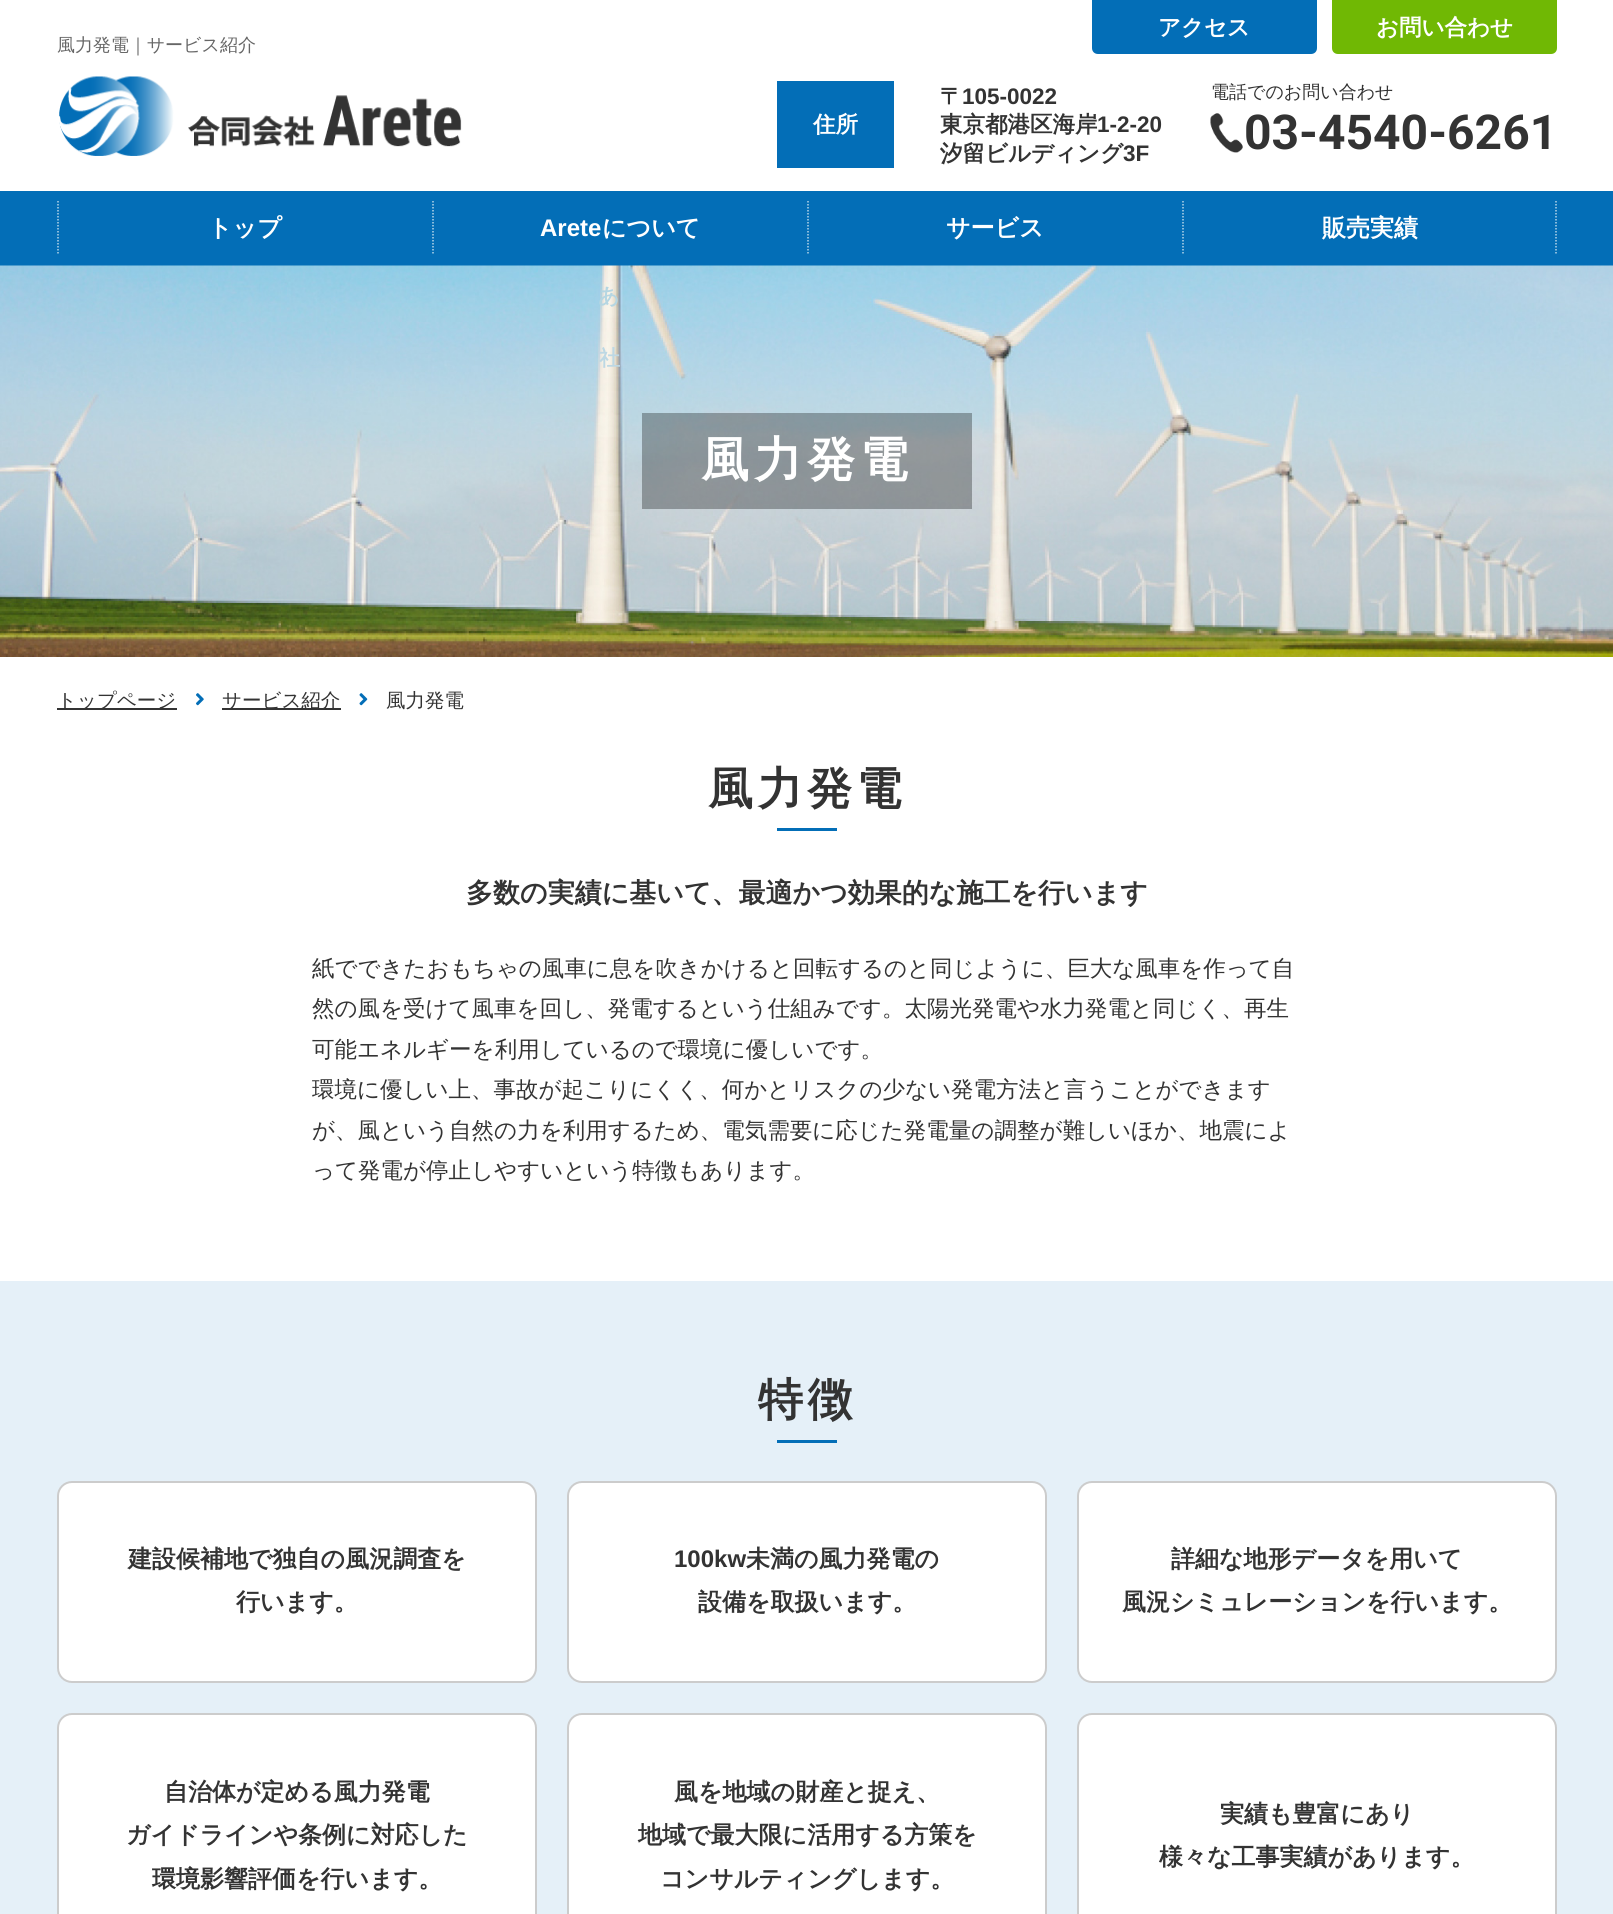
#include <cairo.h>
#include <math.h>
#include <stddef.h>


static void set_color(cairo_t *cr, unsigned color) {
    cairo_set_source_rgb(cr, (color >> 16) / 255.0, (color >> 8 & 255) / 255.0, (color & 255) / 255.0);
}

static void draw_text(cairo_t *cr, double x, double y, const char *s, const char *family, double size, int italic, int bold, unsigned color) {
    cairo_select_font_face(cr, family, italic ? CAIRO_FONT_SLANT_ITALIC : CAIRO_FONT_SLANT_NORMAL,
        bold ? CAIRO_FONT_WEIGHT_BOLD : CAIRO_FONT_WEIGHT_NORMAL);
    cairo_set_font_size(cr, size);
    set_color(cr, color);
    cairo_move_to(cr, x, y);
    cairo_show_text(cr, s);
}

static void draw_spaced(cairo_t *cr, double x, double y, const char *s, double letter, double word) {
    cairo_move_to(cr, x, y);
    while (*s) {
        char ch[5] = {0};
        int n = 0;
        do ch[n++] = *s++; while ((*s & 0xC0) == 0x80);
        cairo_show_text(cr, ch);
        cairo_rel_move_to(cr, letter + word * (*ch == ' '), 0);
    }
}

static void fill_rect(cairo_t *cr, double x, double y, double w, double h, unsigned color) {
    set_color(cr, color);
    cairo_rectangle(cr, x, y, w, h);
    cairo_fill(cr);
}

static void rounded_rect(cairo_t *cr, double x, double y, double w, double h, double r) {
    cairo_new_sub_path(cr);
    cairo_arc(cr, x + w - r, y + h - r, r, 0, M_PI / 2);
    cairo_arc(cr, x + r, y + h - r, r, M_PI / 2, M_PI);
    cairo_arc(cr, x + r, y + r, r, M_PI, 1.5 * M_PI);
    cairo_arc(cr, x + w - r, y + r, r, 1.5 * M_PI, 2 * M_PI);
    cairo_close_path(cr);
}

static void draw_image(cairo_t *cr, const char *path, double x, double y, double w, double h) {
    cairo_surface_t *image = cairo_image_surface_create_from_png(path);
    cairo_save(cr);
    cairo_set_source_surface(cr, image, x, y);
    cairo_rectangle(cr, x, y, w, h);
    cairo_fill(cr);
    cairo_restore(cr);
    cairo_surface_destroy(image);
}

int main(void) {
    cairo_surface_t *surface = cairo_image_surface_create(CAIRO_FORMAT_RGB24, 1613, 1914);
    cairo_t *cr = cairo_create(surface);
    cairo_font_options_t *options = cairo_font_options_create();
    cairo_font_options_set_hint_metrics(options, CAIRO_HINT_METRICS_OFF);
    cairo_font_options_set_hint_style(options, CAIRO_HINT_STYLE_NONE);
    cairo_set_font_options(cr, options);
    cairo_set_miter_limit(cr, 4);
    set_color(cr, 0xFFFFFF);
    cairo_paint(cr);
    set_color(cr, 0x036EB7);
    cairo_new_path(cr);
    cairo_move_to(cr, 1092, 0);
    cairo_line_to(cr, 1317, 0);
    cairo_line_to(cr, 1317, 48);
    cairo_curve_to(cr, 1317, 51.5, 1314.5, 54, 1311, 54);
    cairo_line_to(cr, 1098, 54);
    cairo_curve_to(cr, 1094.5, 54, 1092, 51.5, 1092, 48);
    cairo_close_path(cr);
    cairo_fill(cr);
    draw_text(cr, 1158, 35, "アクセス", "WenQuanYi Zen Hei", 22.5, 0, 1, 0xFFFFFF);
    set_color(cr, 0x70B804);
    cairo_new_path(cr);
    cairo_move_to(cr, 1332, 0);
    cairo_line_to(cr, 1557, 0);
    cairo_line_to(cr, 1557, 48);
    cairo_curve_to(cr, 1557, 51.5, 1554.5, 54, 1551, 54);
    cairo_line_to(cr, 1338, 54);
    cairo_curve_to(cr, 1334.5, 54, 1332, 51.5, 1332, 48);
    cairo_close_path(cr);
    cairo_fill(cr);
    draw_text(cr, 1376, 35, "お問い合わせ", "WenQuanYi Zen Hei", 22.5, 0, 1, 0xFFFFFF);
    draw_text(cr, 57, 51, "風力発電｜サービス紹介", "WenQuanYi Zen Hei Medium", 18, 0, 0, 0x666666);
    draw_image(cr, "assets/img1.png", 59, 76, 403, 80);
    fill_rect(cr, 777, 81, 117, 87, 0x036EB7);
    draw_text(cr, 813, 132, "住所", "WenQuanYi Zen Hei", 22.5, 0, 1, 0xFFFFFF);
    draw_text(cr, 940, 104, "〒", "WenQuanYi Zen Hei", 22.5, 0, 1, 0x333333);
    draw_text(cr, 962, 104, "105-0022", "Liberation Sans", 22.5, 0, 1, 0x333333);
    draw_text(cr, 940, 132, "東京都港区海岸", "WenQuanYi Zen Hei", 22.5, 0, 1, 0x333333);
    draw_text(cr, 1097, 132, "1-2-20", "Liberation Sans", 22.5, 0, 1, 0x333333);
    draw_text(cr, 940, 161, "汐留ビルディング", "WenQuanYi Zen Hei", 22.5, 0, 1, 0x333333);
    draw_text(cr, 1123, 161, "3F", "Liberation Sans", 22.5, 0, 1, 0x333333);
    draw_text(cr, 1211, 98, "電話でのお問い合わせ", "WenQuanYi Zen Hei Medium", 18, 0, 0, 0x333333);
    draw_image(cr, "assets/img2.png", 1210, 113, 33, 40);
    draw_text(cr, 1244, 149, "03-4540-6261", "Roboto", 48, 0, 1, 0x333333);
    fill_rect(cr, 0, 191, 1613, 75, 0x036EB7);
    cairo_new_path(cr);
    cairo_move_to(cr, 58, 201);
    cairo_line_to(cr, 58, 255);
    set_color(cr, 0xB3D4E9);
    cairo_set_line_width(cr, 1.5);
    cairo_set_dash(cr, (double[]){1.5, 1.5}, 2, 0);
    cairo_stroke(cr);
    draw_text(cr, 208, 236, "トップ", "WenQuanYi Zen Hei", 24, 0, 1, 0xFFFFFF);
    cairo_new_path(cr);
    cairo_move_to(cr, 433, 201);
    cairo_line_to(cr, 433, 255);
    set_color(cr, 0xB3D4E9);
    cairo_stroke(cr);
    draw_text(cr, 540, 236, "Arete", "Liberation Sans", 24, 0, 1, 0xFFFFFF);
    draw_text(cr, 602, 236, "について", "WenQuanYi Zen Hei", 24, 0, 1, 0xFFFFFF);
    draw_image(cr, "assets/img3.png", 0, 265, 1613, 392);
    draw_text(cr, 598, 303, "あ", "WenQuanYi Zen Hei", 21, 0, 1, 0xB5D6E2);
    draw_text(cr, 599, 365, "社", "WenQuanYi Zen Hei", 21, 0, 1, 0xBDD8E4);
    cairo_new_path(cr);
    cairo_move_to(cr, 808, 201);
    cairo_line_to(cr, 808, 255);
    set_color(cr, 0xB3D4E9);
    cairo_stroke(cr);
    draw_text(cr, 946, 236, "サービス", "WenQuanYi Zen Hei", 24, 0, 1, 0xFFFFFF);
    cairo_new_path(cr);
    cairo_move_to(cr, 1556, 201);
    cairo_line_to(cr, 1556, 255);
    set_color(cr, 0xB3D4E9);
    cairo_stroke(cr);
    cairo_new_path(cr);
    cairo_move_to(cr, 1183, 201);
    cairo_line_to(cr, 1183, 255);
    cairo_stroke(cr);
    draw_text(cr, 1322, 236, "販売実績", "WenQuanYi Zen Hei", 24, 0, 1, 0xFFFFFF);
    cairo_set_source_rgba(cr, 0, 0, 0, 0.3);
    cairo_rectangle(cr, 642, 413, 330, 96);
    cairo_fill(cr);
    cairo_set_font_size(cr, 48);
    set_color(cr, 0xFFFFFF);
    draw_spaced(cr, 701, 476, "風力発電", 5, 0);
    fill_rect(cr, 57, 708, 120, 2, 0x333333);
    draw_text(cr, 57, 707, "トップページ", "WenQuanYi Zen Hei Medium", 19.5, 0, 0, 0x333333);
    draw_image(cr, "assets/img4.png", 196, 693, 8, 13);
    fill_rect(cr, 222, 708, 119, 2, 0x333333);
    draw_text(cr, 222, 707, "サービス紹介", "WenQuanYi Zen Hei Medium", 19.5, 0, 0, 0x333333);
    draw_image(cr, "assets/img5.png", 359, 693, 9, 13);
    draw_text(cr, 386, 707, "風力発電", "WenQuanYi Zen Hei Medium", 19.5, 0, 0, 0x333333);
    cairo_select_font_face(cr, "WenQuanYi Zen Hei", CAIRO_FONT_SLANT_NORMAL, CAIRO_FONT_WEIGHT_BOLD);
    cairo_set_font_size(cr, 45);
    draw_spaced(cr, 708, 804, "風力発電", 4.5, 0);
    fill_rect(cr, 777, 828, 60, 3, 0x036EB7);
    draw_text(cr, 466, 902, "多数の実績に基いて、最適かつ効果的な施工を行います", "WenQuanYi Zen Hei", 27, 0, 1, 0x333333);
    draw_text(cr, 312, 976, "紙でできたおもちゃの風車に息を吹きかけると回転するのと同じように、巨大な風車を作って自", "WenQuanYi Zen Hei Medium", 22.5, 0, 0, 0x333333);
    draw_text(cr, 312, 1016, "然の風を受けて風車を回し、発電するという仕組みです。太陽光発電や水力発電と同じく、再生", "WenQuanYi Zen Hei Medium", 22.5, 0, 0, 0x333333);
    draw_text(cr, 312, 1057, "可能エネルギーを利用しているので環境に優しいです。", "WenQuanYi Zen Hei Medium", 22.5, 0, 0, 0x333333);
    draw_text(cr, 312, 1097, "環境に優しい上、事故が起こりにくく、何かとリスクの少ない発電方法と言うことができます", "WenQuanYi Zen Hei Medium", 22.5, 0, 0, 0x333333);
    draw_text(cr, 312, 1138, "が、風という自然の力を利用するため、電気需要に応じた発電量の調整が難しいほか、地震によ", "WenQuanYi Zen Hei Medium", 22.5, 0, 0, 0x333333);
    draw_text(cr, 312, 1178, "って発電が停止しやすいという特徴もあります。", "WenQuanYi Zen Hei Medium", 22.5, 0, 0, 0x333333);
    fill_rect(cr, 0, 1281, 1613, 633, 0xE5F0F8);
    cairo_select_font_face(cr, "WenQuanYi Zen Hei", CAIRO_FONT_SLANT_NORMAL, CAIRO_FONT_WEIGHT_BOLD);
    cairo_set_font_size(cr, 45);
    set_color(cr, 0x333333);
    draw_spaced(cr, 758, 1415, "特徴", 4.5, 0);
    fill_rect(cr, 777, 1440, 60, 3, 0x036EB7);
    set_color(cr, 0xFFFFFF);
    rounded_rect(cr, 58, 1482, 478, 200, 14);
    cairo_fill_preserve(cr);
    set_color(cr, 0xCCCCCC);
    cairo_set_line_width(cr, 2);
    cairo_set_dash(cr, NULL, 0, 0);
    cairo_stroke(cr);
    draw_text(cr, 128, 1567, "建設候補地で独自の風況調査を", "WenQuanYi Zen Hei", 24, 0, 1, 0x333333);
    draw_text(cr, 236, 1610, "行います。", "WenQuanYi Zen Hei", 24, 0, 1, 0x333333);
    set_color(cr, 0xFFFFFF);
    rounded_rect(cr, 568, 1482, 478, 200, 14);
    cairo_fill_preserve(cr);
    set_color(cr, 0xCCCCCC);
    cairo_stroke(cr);
    draw_text(cr, 674, 1567, "100kw", "Liberation Sans", 24, 0, 1, 0x333333);
    draw_text(cr, 746, 1567, "未満の風力発電の", "WenQuanYi Zen Hei", 24, 0, 1, 0x333333);
    draw_text(cr, 698, 1610, "設備を取扱います。", "WenQuanYi Zen Hei", 24, 0, 1, 0x333333);
    set_color(cr, 0xFFFFFF);
    rounded_rect(cr, 1078, 1482, 478, 200, 14);
    cairo_fill_preserve(cr);
    set_color(cr, 0xCCCCCC);
    cairo_stroke(cr);
    draw_text(cr, 1171, 1567, "詳細な地形データを用いて", "WenQuanYi Zen Hei", 24, 0, 1, 0x333333);
    draw_text(cr, 1122, 1610, "風況シミュレーションを行います。", "WenQuanYi Zen Hei", 24, 0, 1, 0x333333);
    set_color(cr, 0xFFFFFF);
    rounded_rect(cr, 58, 1714, 478, 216, 14);
    cairo_fill_preserve(cr);
    set_color(cr, 0xCCCCCC);
    cairo_stroke(cr);
    draw_text(cr, 164, 1800, "自治体が定める風力発電", "WenQuanYi Zen Hei", 24, 0, 1, 0x333333);
    draw_text(cr, 126, 1843, "ガイドラインや条例に対応した", "WenQuanYi Zen Hei", 24, 0, 1, 0x333333);
    draw_text(cr, 152, 1887, "環境影響評価を行います。", "WenQuanYi Zen Hei", 24, 0, 1, 0x333333);
    set_color(cr, 0xFFFFFF);
    rounded_rect(cr, 568, 1714, 478, 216, 14);
    cairo_fill_preserve(cr);
    set_color(cr, 0xCCCCCC);
    cairo_stroke(cr);
    draw_text(cr, 674, 1800, "風を地域の財産と捉え、", "WenQuanYi Zen Hei", 24, 0, 1, 0x333333);
    draw_text(cr, 638, 1843, "地域で最大限に活用する方策を", "WenQuanYi Zen Hei", 24, 0, 1, 0x333333);
    draw_text(cr, 660, 1887, "コンサルティングします。", "WenQuanYi Zen Hei", 24, 0, 1, 0x333333);
    set_color(cr, 0xFFFFFF);
    rounded_rect(cr, 1078, 1714, 478, 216, 14);
    cairo_fill_preserve(cr);
    set_color(cr, 0xCCCCCC);
    cairo_stroke(cr);
    draw_text(cr, 1220, 1822, "実績も豊富にあり", "WenQuanYi Zen Hei", 24, 0, 1, 0x333333);
    draw_text(cr, 1159, 1865, "様々な工事実績があります。", "WenQuanYi Zen Hei", 24, 0, 1, 0x333333);
    cairo_surface_write_to_png(surface, "output.png");
    cairo_font_options_destroy(options);
    cairo_destroy(cr);
    cairo_surface_destroy(surface);
    return 0;
}
